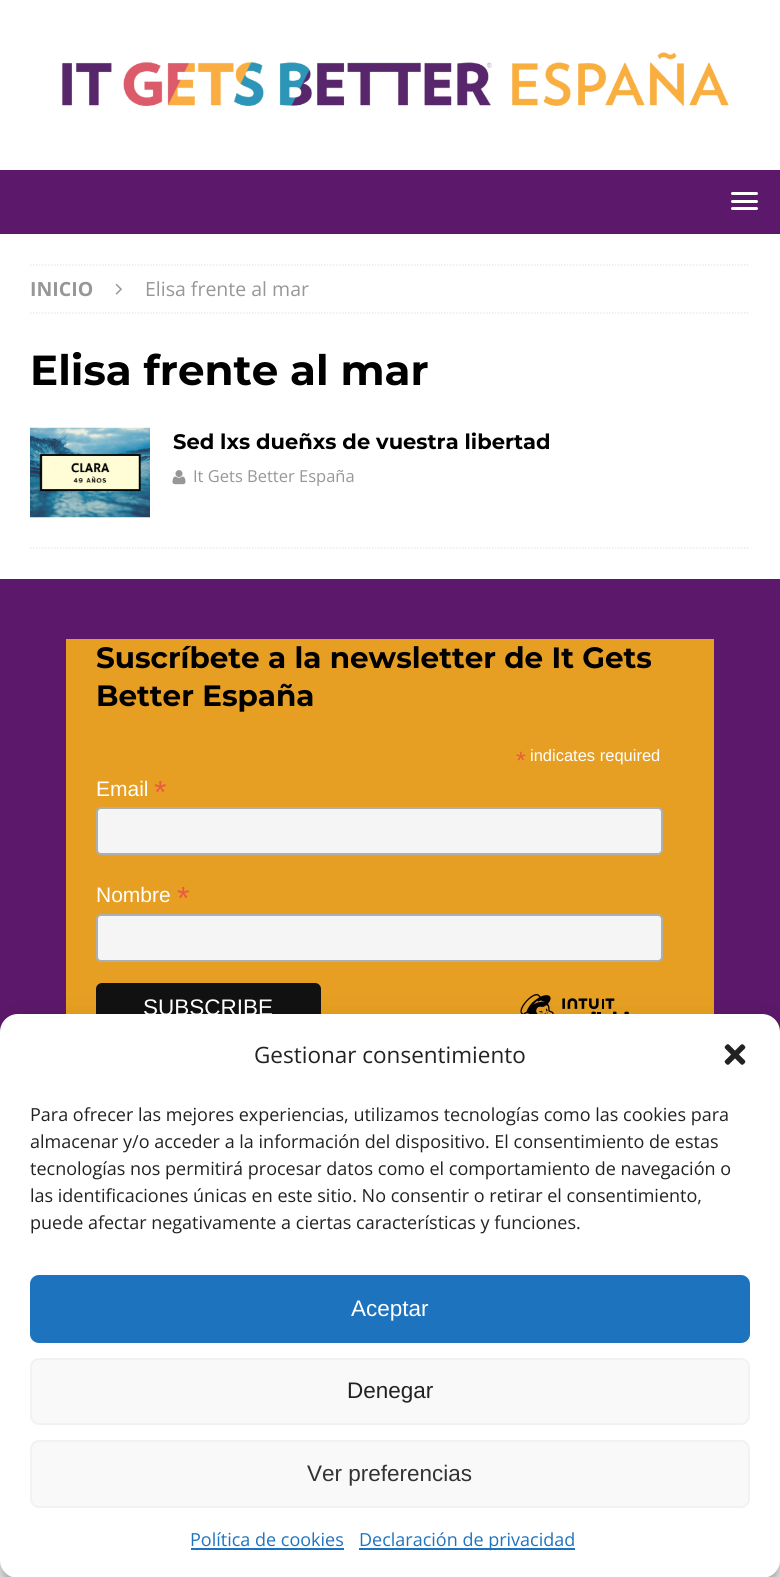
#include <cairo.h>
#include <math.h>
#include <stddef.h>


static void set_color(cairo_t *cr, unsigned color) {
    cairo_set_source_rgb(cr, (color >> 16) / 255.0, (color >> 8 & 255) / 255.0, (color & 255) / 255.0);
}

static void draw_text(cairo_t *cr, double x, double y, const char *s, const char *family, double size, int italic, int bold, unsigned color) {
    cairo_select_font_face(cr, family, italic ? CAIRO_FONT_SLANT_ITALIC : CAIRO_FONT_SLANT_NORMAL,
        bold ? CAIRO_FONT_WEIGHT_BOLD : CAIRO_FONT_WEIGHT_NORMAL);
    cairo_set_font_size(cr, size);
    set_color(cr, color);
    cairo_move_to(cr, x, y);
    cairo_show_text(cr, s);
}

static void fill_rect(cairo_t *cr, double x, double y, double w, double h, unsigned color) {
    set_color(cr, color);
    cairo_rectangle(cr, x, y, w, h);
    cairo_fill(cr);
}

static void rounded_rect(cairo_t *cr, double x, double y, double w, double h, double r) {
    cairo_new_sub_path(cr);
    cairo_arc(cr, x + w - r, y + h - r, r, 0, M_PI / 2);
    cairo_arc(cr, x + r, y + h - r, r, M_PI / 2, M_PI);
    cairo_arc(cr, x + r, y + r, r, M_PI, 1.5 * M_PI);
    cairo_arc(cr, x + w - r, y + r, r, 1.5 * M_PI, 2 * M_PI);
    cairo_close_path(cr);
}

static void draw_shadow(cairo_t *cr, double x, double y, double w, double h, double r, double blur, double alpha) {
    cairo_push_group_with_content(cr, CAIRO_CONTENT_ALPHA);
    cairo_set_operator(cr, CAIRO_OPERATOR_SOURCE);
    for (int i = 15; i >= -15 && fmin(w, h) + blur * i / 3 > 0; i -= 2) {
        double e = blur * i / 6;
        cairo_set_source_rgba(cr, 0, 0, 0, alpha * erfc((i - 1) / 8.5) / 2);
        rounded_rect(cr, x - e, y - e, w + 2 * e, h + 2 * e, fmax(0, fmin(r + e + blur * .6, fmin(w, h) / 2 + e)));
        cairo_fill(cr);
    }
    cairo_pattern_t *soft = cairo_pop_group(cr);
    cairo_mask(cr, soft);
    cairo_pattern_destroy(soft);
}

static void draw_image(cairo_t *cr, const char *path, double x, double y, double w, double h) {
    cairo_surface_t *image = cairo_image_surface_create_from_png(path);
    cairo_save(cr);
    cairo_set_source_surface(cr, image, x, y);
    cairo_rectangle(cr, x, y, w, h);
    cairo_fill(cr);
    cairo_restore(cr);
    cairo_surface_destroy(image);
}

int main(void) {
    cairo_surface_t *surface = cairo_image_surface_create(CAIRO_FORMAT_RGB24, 780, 1577);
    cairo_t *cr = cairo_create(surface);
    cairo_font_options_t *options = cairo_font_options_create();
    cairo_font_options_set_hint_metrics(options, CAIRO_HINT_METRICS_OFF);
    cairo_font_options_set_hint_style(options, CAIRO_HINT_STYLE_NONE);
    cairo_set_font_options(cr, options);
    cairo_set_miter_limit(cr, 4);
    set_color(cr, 0xFFFFFF);
    cairo_paint(cr);
    draw_image(cr, "assets/img1.png", 62, 52, 667, 55);
    fill_rect(cr, 0, 170, 780, 64, 0x5C186A);
    set_color(cr, 0xFFFFFF);
    rounded_rect(cr, 731, 192, 27, 3, 1.5);
    cairo_fill(cr);
    rounded_rect(cr, 731, 200, 27, 3, 1.5);
    cairo_fill(cr);
    rounded_rect(cr, 731, 207, 27, 3, 1.5);
    cairo_fill(cr);
    cairo_new_path(cr);
    cairo_move_to(cr, 30, 265);
    cairo_line_to(cr, 750, 265);
    set_color(cr, 0xEBEBEB);
    cairo_set_line_width(cr, 1.5);
    cairo_set_dash(cr, (double[]){1.5, 1.5}, 2, 0);
    cairo_stroke(cr);
    cairo_new_path(cr);
    cairo_move_to(cr, 30, 313);
    cairo_line_to(cr, 750, 313);
    cairo_stroke(cr);
    draw_text(cr, 30, 296, "INICIO", "Open Sans", 19.5, 0, 1, 0x979797);
    draw_image(cr, "assets/img2.png", 115, 283, 7, 12);
    draw_text(cr, 145, 296, "Elisa frente al mar", "Open Sans", 19.5, 0, 0, 0x979797);
    draw_text(cr, 30, 385, "Elisa frente al mar", "Montserrat", 42, 0, 1, 0x000000);
    cairo_new_path(cr);
    cairo_move_to(cr, 30, 548);
    cairo_line_to(cr, 750, 548);
    set_color(cr, 0xEBEBEB);
    cairo_stroke(cr);
    draw_image(cr, "assets/img3.png", 30, 427, 120, 91);
    draw_text(cr, 173, 449, "Sed lxs dueñxs de vuestra libertad", "Montserrat", 21, 0, 1, 0x000000);
    draw_image(cr, "assets/img4.png", 172, 470, 14, 15);
    draw_text(cr, 193, 482, "It Gets Better España", "Open Sans", 16.5, 0, 0, 0x979797);
    fill_rect(cr, 0, 579, 780, 453, 0x5C186A);
    fill_rect(cr, 66, 639, 648, 375, 0xE69F22);
    draw_text(cr, 96, 668, "Suscríbete a la newsletter de It Gets", "Montserrat", 29.4, 0, 1, 0x000000);
    draw_text(cr, 96, 706, "Better España", "Montserrat", 29.4, 0, 1, 0x000000);
    draw_text(cr, 516, 769, "*", "Liberation Sans", 25, 0, 0, 0xE85C41);
    draw_text(cr, 530, 761, "indicates required", "Liberation Sans", 16.5, 0, 0, 0xFFFFFF);
    draw_text(cr, 96, 796, "Email", "Liberation Sans", 21, 0, 0, 0xFFFFFF);
    draw_text(cr, 154, 803, "*", "Liberation Sans", 32, 0, 0, 0xE85C41);
    set_color(cr, 0xF5F5F5);
    rounded_rect(cr, 97, 808, 565, 46, 4);
    cairo_fill_preserve(cr);
    set_color(cr, 0xABB0B2);
    cairo_set_line_width(cr, 2);
    cairo_set_dash(cr, NULL, 0, 0);
    cairo_stroke(cr);
    draw_text(cr, 96, 902, "Nombre", "Liberation Sans", 21, 0, 0, 0xFFFFFF);
    draw_text(cr, 177, 909, "*", "Liberation Sans", 32, 0, 0, 0xE85C41);
    set_color(cr, 0xF5F5F5);
    rounded_rect(cr, 97, 915, 565, 46, 4);
    cairo_fill_preserve(cr);
    set_color(cr, 0xABB0B2);
    cairo_stroke(cr);
    set_color(cr, 0x111111);
    rounded_rect(cr, 96, 983, 225, 48, 6);
    cairo_fill(cr);
    draw_text(cr, 143, 1015, "SUBSCRIBE", "Liberation Sans", 22.5, 0, 0, 0xFFFFFF);
    draw_image(cr, "assets/img5.png", 520, 994, 109, 20);
    set_color(cr, 0x000000);
    draw_shadow(cr, 0, 1023, 780, 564, 18, 4.5, 0.23);
    draw_shadow(cr, 0, 1029, 780, 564, 18, 15, 0.19);
    set_color(cr, 0xFFFFFF);
    rounded_rect(cr, 0, 1014, 780, 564, 18);
    cairo_fill(cr);
    draw_text(cr, 254, 1063, "Gestionar consentimiento", "Open Sans", 22.5, 0, 0, 0x222222);
    draw_image(cr, "assets/img6.png", 724, 1044, 22, 21);
    draw_text(cr, 30, 1121, "Para ofrecer las mejores experiencias, utilizamos tecnologías como las cookies para", "Open Sans", 18, 0, 0, 0x222222);
    draw_text(cr, 30, 1148, "almacenar y/o acceder a la información del dispositivo. El consentimiento de estas", "Open Sans", 18, 0, 0, 0x222222);
    draw_text(cr, 30, 1175, "tecnologías nos permitirá procesar datos como el comportamiento de navegación o", "Open Sans", 18, 0, 0, 0x222222);
    draw_text(cr, 30, 1202, "las identificaciones únicas en este sitio. No consentir o retirar el consentimiento,", "Open Sans", 18, 0, 0, 0x222222);
    draw_text(cr, 30, 1229, "puede afectar negativamente a ciertas características y funciones.", "Open Sans", 18, 0, 0, 0x222222);
    set_color(cr, 0x1E73BE);
    rounded_rect(cr, 31, 1276, 718, 66, 8);
    cairo_fill_preserve(cr);
    cairo_stroke(cr);
    draw_text(cr, 351, 1316, "Aceptar", "Liberation Sans", 22.5, 0, 0, 0xFFFFFF);
    set_color(cr, 0xF9F9F9);
    rounded_rect(cr, 31, 1359, 718, 65, 8);
    cairo_fill_preserve(cr);
    set_color(cr, 0xF2F2F2);
    cairo_stroke(cr);
    draw_text(cr, 347, 1398, "Denegar", "Liberation Sans", 22.5, 0, 0, 0x222222);
    set_color(cr, 0xF9F9F9);
    rounded_rect(cr, 31, 1441, 718, 66, 8);
    cairo_fill_preserve(cr);
    set_color(cr, 0xF2F2F2);
    cairo_stroke(cr);
    draw_text(cr, 307, 1481, "Ver preferencias", "Liberation Sans", 22.5, 0, 0, 0x333333);
    draw_text(cr, 190, 1546, "Política de cookies", "Open Sans", 18, 0, 0, 0x1E73BE);
    fill_rect(cr, 191, 1548, 153, 2, 0x1E73BE);
    fill_rect(cr, 359, 1548, 216, 2, 0x1E73BE);
    draw_text(cr, 359, 1546, "Declaración de privacidad", "Open Sans", 18, 0, 0, 0x1E73BE);
    cairo_surface_write_to_png(surface, "output.png");
    cairo_font_options_destroy(options);
    cairo_destroy(cr);
    cairo_surface_destroy(surface);
    return 0;
}
